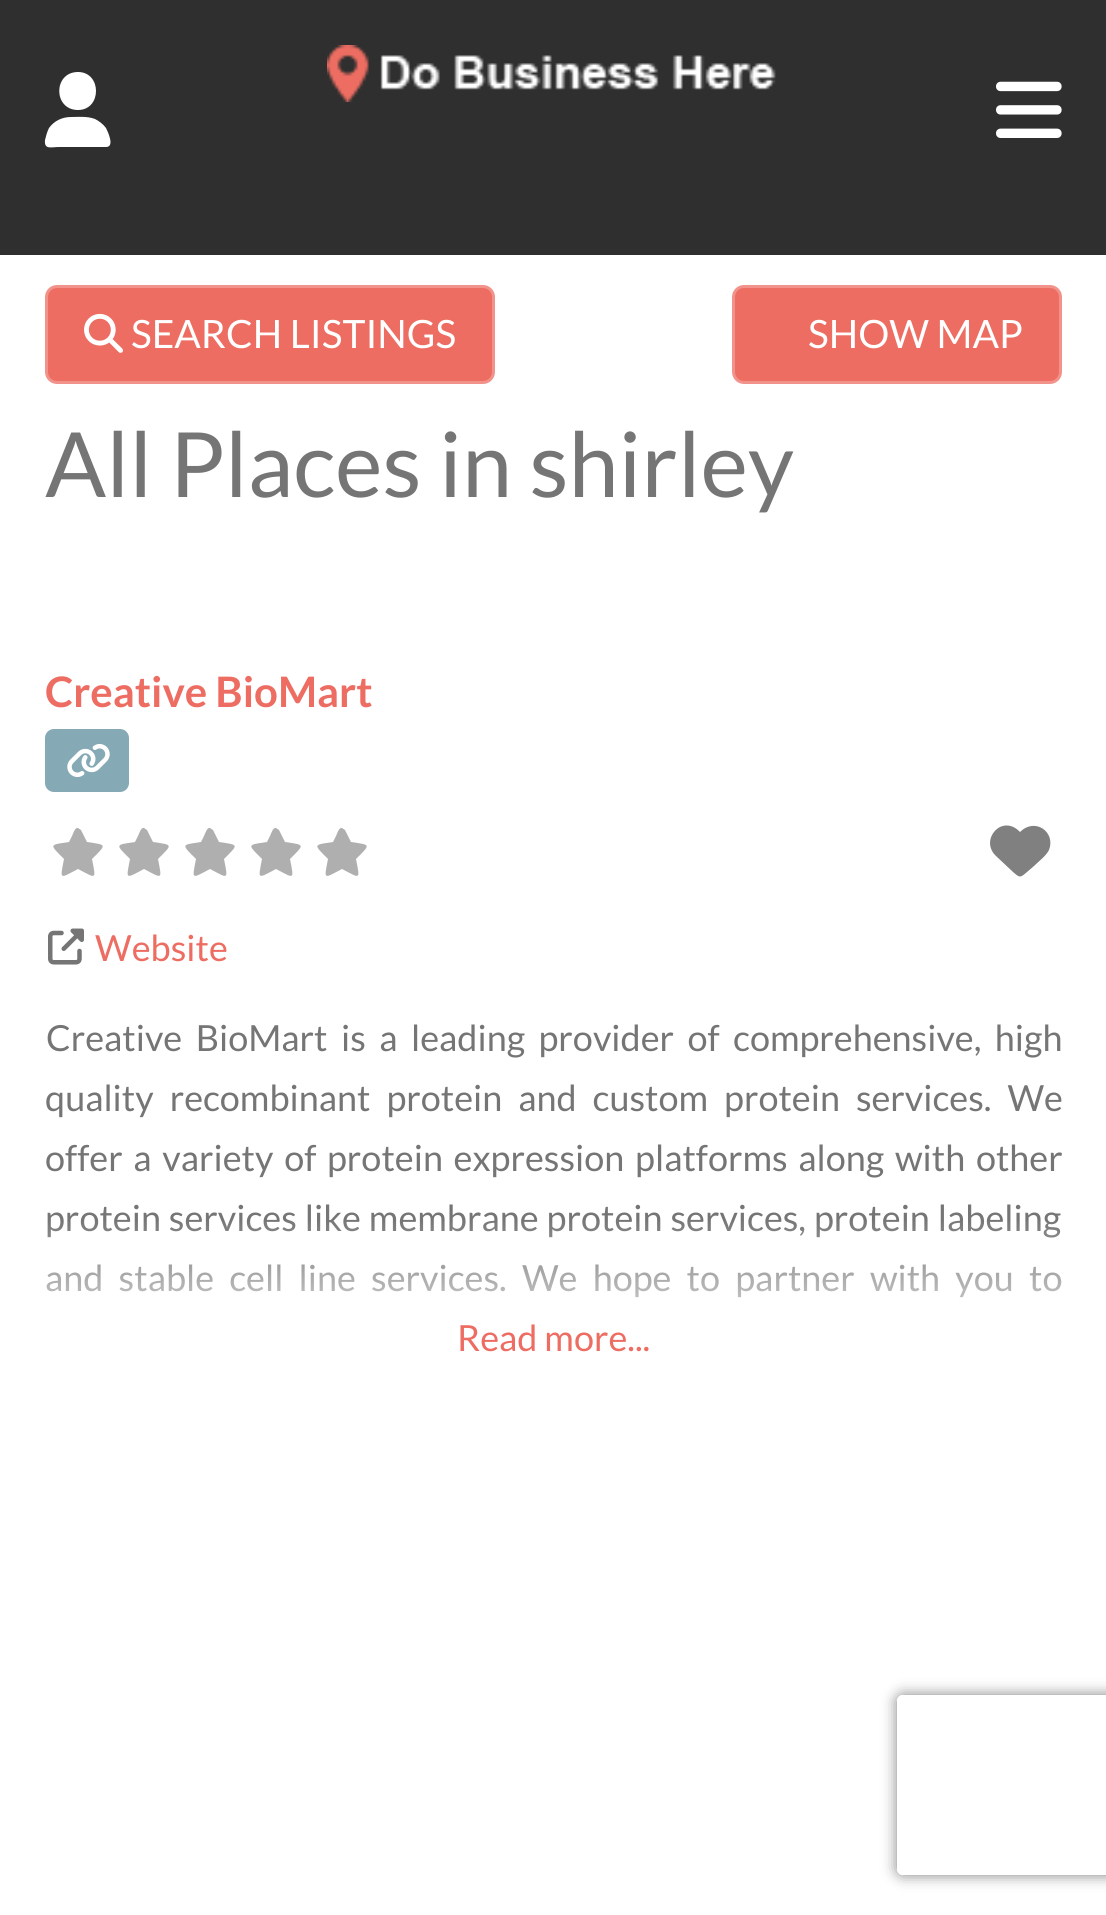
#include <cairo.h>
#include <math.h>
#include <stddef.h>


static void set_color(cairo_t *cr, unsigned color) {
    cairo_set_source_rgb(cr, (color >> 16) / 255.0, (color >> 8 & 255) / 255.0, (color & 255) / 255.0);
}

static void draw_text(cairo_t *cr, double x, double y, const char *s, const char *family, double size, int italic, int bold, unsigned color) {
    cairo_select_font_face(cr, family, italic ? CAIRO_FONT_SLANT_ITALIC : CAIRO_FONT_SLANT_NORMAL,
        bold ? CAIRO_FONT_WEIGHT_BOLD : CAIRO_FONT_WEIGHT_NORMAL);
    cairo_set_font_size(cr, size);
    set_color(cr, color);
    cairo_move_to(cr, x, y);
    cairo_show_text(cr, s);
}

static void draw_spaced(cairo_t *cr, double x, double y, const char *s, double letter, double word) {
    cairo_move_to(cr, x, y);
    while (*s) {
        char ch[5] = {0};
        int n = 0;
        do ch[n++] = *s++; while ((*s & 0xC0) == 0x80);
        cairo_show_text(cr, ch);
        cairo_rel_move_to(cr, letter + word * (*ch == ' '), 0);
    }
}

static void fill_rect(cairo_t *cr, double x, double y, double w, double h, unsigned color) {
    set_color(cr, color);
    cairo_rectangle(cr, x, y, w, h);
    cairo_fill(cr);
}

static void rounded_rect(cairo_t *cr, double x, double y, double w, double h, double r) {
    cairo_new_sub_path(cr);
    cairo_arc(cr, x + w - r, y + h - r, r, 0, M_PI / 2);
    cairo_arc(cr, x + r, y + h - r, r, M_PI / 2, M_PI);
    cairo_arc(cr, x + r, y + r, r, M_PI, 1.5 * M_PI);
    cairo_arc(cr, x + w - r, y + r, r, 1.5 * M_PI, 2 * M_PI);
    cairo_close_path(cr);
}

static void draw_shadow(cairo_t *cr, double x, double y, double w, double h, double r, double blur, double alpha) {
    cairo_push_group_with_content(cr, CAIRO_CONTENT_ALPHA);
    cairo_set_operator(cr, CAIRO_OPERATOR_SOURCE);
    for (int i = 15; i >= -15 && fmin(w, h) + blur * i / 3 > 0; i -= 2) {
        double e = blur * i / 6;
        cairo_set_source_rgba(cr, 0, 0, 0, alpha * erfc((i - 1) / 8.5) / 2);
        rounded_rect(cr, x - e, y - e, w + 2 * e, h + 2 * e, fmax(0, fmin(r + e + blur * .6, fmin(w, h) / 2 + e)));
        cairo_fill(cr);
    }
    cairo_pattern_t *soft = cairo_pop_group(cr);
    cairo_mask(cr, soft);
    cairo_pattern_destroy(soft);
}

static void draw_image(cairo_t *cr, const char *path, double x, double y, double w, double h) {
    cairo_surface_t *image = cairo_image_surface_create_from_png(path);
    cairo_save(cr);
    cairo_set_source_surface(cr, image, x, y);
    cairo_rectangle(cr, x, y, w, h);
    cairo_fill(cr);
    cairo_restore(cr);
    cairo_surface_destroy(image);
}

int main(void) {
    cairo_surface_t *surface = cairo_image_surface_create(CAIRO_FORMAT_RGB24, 1106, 1915);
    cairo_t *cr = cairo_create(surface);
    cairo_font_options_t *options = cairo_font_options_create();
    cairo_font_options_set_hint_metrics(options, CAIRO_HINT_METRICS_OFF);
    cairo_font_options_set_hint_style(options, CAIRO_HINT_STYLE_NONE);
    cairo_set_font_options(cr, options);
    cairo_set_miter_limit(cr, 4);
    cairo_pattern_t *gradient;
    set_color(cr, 0xFFFFFF);
    cairo_paint(cr);
    fill_rect(cr, 0, 0, 1106, 255, 0x2F2F2F);
    set_color(cr, 0xFFFFFF);
    cairo_new_path(cr);
    cairo_move_to(cr, 78, 110);
    cairo_curve_to(cr, 102, 110, 102, 72, 78, 72);
    cairo_curve_to(cr, 53, 72, 53, 110, 78, 110);
    cairo_close_path(cr);
    cairo_move_to(cr, 71, 117);
    cairo_curve_to(cr, 62, 117, 54, 121, 49, 128);
    cairo_curve_to(cr, 47, 132, 46, 136, 45, 140);
    cairo_curve_to(cr, 44, 150, 51, 147, 59, 147);
    cairo_line_to(cr, 106, 147);
    cairo_curve_to(cr, 115, 147, 108, 132, 106, 128);
    cairo_curve_to(cr, 103, 124, 99, 121, 95, 119);
    cairo_curve_to(cr, 87, 116, 79, 117, 71, 117);
    cairo_close_path(cr);
    cairo_fill(cr);
    draw_image(cr, "assets/img1.png", 327, 45, 449, 57);
    draw_image(cr, "assets/img2.png", 996, 81, 66, 57);
    set_color(cr, 0xED6D62);
    rounded_rect(cr, 46.5, 286.5, 447, 96, 10.5);
    cairo_fill_preserve(cr);
    set_color(cr, 0xF2938B);
    cairo_set_line_width(cr, 3);
    cairo_stroke(cr);
    draw_image(cr, "assets/img3.png", 84, 313, 39, 40);
    draw_text(cr, 131, 348, "SEARCH LISTINGS", "Lato", 39, 0, 0, 0xFFFFFF);
    set_color(cr, 0xED6D62);
    rounded_rect(cr, 733.5, 286.5, 327, 96, 10.5);
    cairo_fill_preserve(cr);
    set_color(cr, 0xF2938B);
    cairo_stroke(cr);
    draw_text(cr, 808, 348, "SHOW MAP", "Lato", 39, 0, 0, 0xFFFFFF);
    draw_text(cr, 45, 497, "All Places in shirley", "Lato", 90, 0, 0, 0x757575);
    draw_text(cr, 45, 707, "Creative BioMart", "Lato", 42, 0, 1, 0xED6D62);
    set_color(cr, 0x85A9B5);
    rounded_rect(cr, 45, 729, 84, 63, 9);
    cairo_fill(cr);
    draw_image(cr, "assets/img4.png", 67, 744, 43, 33);
    set_color(cr, 0xAFAFAF);
    cairo_new_path(cr);
    cairo_move_to(cr, 81, 830);
    cairo_line_to(cr, 78, 828);
    cairo_curve_to(cr, 75, 827, 73, 834, 72, 836);
    cairo_line_to(cr, 69, 842);
    cairo_curve_to(cr, 49, 845, 49, 844, 64, 859);
    cairo_curve_to(cr, 60, 880, 59, 879, 78, 869);
    cairo_curve_to(cr, 97, 879, 96, 880, 92, 859);
    cairo_curve_to(cr, 107, 844, 107, 845, 87, 842);
    cairo_close_path(cr);
    cairo_fill(cr);
    cairo_new_path(cr);
    cairo_move_to(cr, 147, 830);
    cairo_line_to(cr, 144, 828);
    cairo_curve_to(cr, 141, 827, 139, 834, 138, 836);
    cairo_line_to(cr, 135, 842);
    cairo_curve_to(cr, 115, 845, 115, 844, 130, 859);
    cairo_curve_to(cr, 126, 880, 125, 879, 144, 869);
    cairo_curve_to(cr, 163, 879, 162, 880, 158, 859);
    cairo_curve_to(cr, 173, 844, 173, 845, 153, 842);
    cairo_close_path(cr);
    cairo_fill(cr);
    cairo_new_path(cr);
    cairo_move_to(cr, 213, 830);
    cairo_line_to(cr, 210, 828);
    cairo_curve_to(cr, 207, 827, 205, 834, 204, 836);
    cairo_line_to(cr, 201, 842);
    cairo_curve_to(cr, 181, 845, 181, 844, 196, 859);
    cairo_curve_to(cr, 192, 880, 191, 879, 210, 869);
    cairo_curve_to(cr, 229, 879, 228, 880, 224, 859);
    cairo_curve_to(cr, 239, 844, 239, 845, 219, 842);
    cairo_close_path(cr);
    cairo_fill(cr);
    cairo_new_path(cr);
    cairo_move_to(cr, 279, 830);
    cairo_line_to(cr, 276, 828);
    cairo_curve_to(cr, 273, 827, 271, 834, 270, 836);
    cairo_line_to(cr, 267, 842);
    cairo_curve_to(cr, 247, 845, 247, 844, 262, 859);
    cairo_curve_to(cr, 258, 880, 257, 879, 276, 869);
    cairo_curve_to(cr, 295, 879, 294, 880, 290, 859);
    cairo_curve_to(cr, 305, 844, 305, 845, 285, 842);
    cairo_close_path(cr);
    cairo_fill(cr);
    cairo_new_path(cr);
    cairo_move_to(cr, 345, 830);
    cairo_line_to(cr, 342, 828);
    cairo_curve_to(cr, 339, 827, 337, 834, 336, 836);
    cairo_line_to(cr, 333, 842);
    cairo_curve_to(cr, 313, 845, 313, 844, 328, 859);
    cairo_curve_to(cr, 324, 880, 323, 879, 342, 869);
    cairo_curve_to(cr, 361, 879, 360, 880, 356, 859);
    cairo_curve_to(cr, 371, 844, 371, 845, 351, 842);
    cairo_close_path(cr);
    cairo_fill(cr);
    set_color(cr, 0x808080);
    cairo_new_path(cr);
    cairo_move_to(cr, 996, 856);
    cairo_line_to(cr, 1017, 875);
    cairo_line_to(cr, 996, 856);
    cairo_line_to(cr, 1013, 872);
    cairo_curve_to(cr, 1020, 878, 1020, 878, 1027, 872);
    cairo_line_to(cr, 1034, 866);
    cairo_curve_to(cr, 1039, 861, 1046, 856, 1049, 850);
    cairo_curve_to(cr, 1056, 832, 1035, 817, 1020, 832);
    cairo_curve_to(cr, 1002, 813, 979, 840, 996, 856);
    cairo_close_path(cr);
    cairo_fill(cr);
    draw_image(cr, "assets/img5.png", 48, 928, 36, 37);
    draw_text(cr, 95, 961, "Website", "Lato", 36, 0, 0, 0xED6D62);
    set_color(cr, 0x757575);
    draw_spaced(cr, 46, 1051, "Creative BioMart is a leading provider of comprehensive, high", 0, 6.5);
    draw_spaced(cr, 45, 1111, "quality recombinant protein and custom protein services. We", 0, 9);
    draw_spaced(cr, 45, 1171, "offer a variety of protein expression platforms along with other", 0, 3.75);
    draw_spaced(cr, 45, 1231, "protein services like membrane protein services, protein labeling", 0, 1);
    draw_spaced(cr, 45, 1291, "and stable cell line services. We hope to partner with you to", 0, 8.25);
    gradient = cairo_pattern_create_linear(554, 1218, 554, 1368);
    cairo_pattern_add_color_stop_rgba(gradient, 0, 1, 1, 1, 0);
    cairo_pattern_add_color_stop_rgba(gradient, 1, 1, 1, 1, 1);
    cairo_set_source(cr, gradient);
    cairo_pattern_destroy(gradient);
    cairo_rectangle(cr, 46, 1221, 1015, 77);
    cairo_fill(cr);
    draw_text(cr, 457, 1351, "Read more...", "Lato", 36, 0, 0, 0xED6D62);
    cairo_save(cr);
    cairo_set_fill_rule(cr, CAIRO_FILL_RULE_EVEN_ODD);
    cairo_new_path(cr);
    cairo_move_to(cr, 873, 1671);
    cairo_line_to(cr, 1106, 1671);
    cairo_line_to(cr, 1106, 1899);
    cairo_line_to(cr, 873, 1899);
    cairo_close_path(cr);
    cairo_move_to(cr, 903, 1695);
    cairo_line_to(cr, 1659, 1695);
    cairo_curve_to(cr, 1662.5, 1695, 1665, 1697.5, 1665, 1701);
    cairo_line_to(cr, 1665, 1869);
    cairo_curve_to(cr, 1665, 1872.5, 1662.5, 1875, 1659, 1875);
    cairo_line_to(cr, 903, 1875);
    cairo_curve_to(cr, 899.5, 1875, 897, 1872.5, 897, 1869);
    cairo_line_to(cr, 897, 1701);
    cairo_curve_to(cr, 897, 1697.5, 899.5, 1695, 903, 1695);
    cairo_close_path(cr);
    cairo_clip(cr);
    set_color(cr, 0x808080);
    draw_shadow(cr, 897, 1695, 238, 180, 6, 7.5, 1);
    cairo_restore(cr);
    cairo_surface_write_to_png(surface, "output.png");
    cairo_font_options_destroy(options);
    cairo_destroy(cr);
    cairo_surface_destroy(surface);
    return 0;
}
